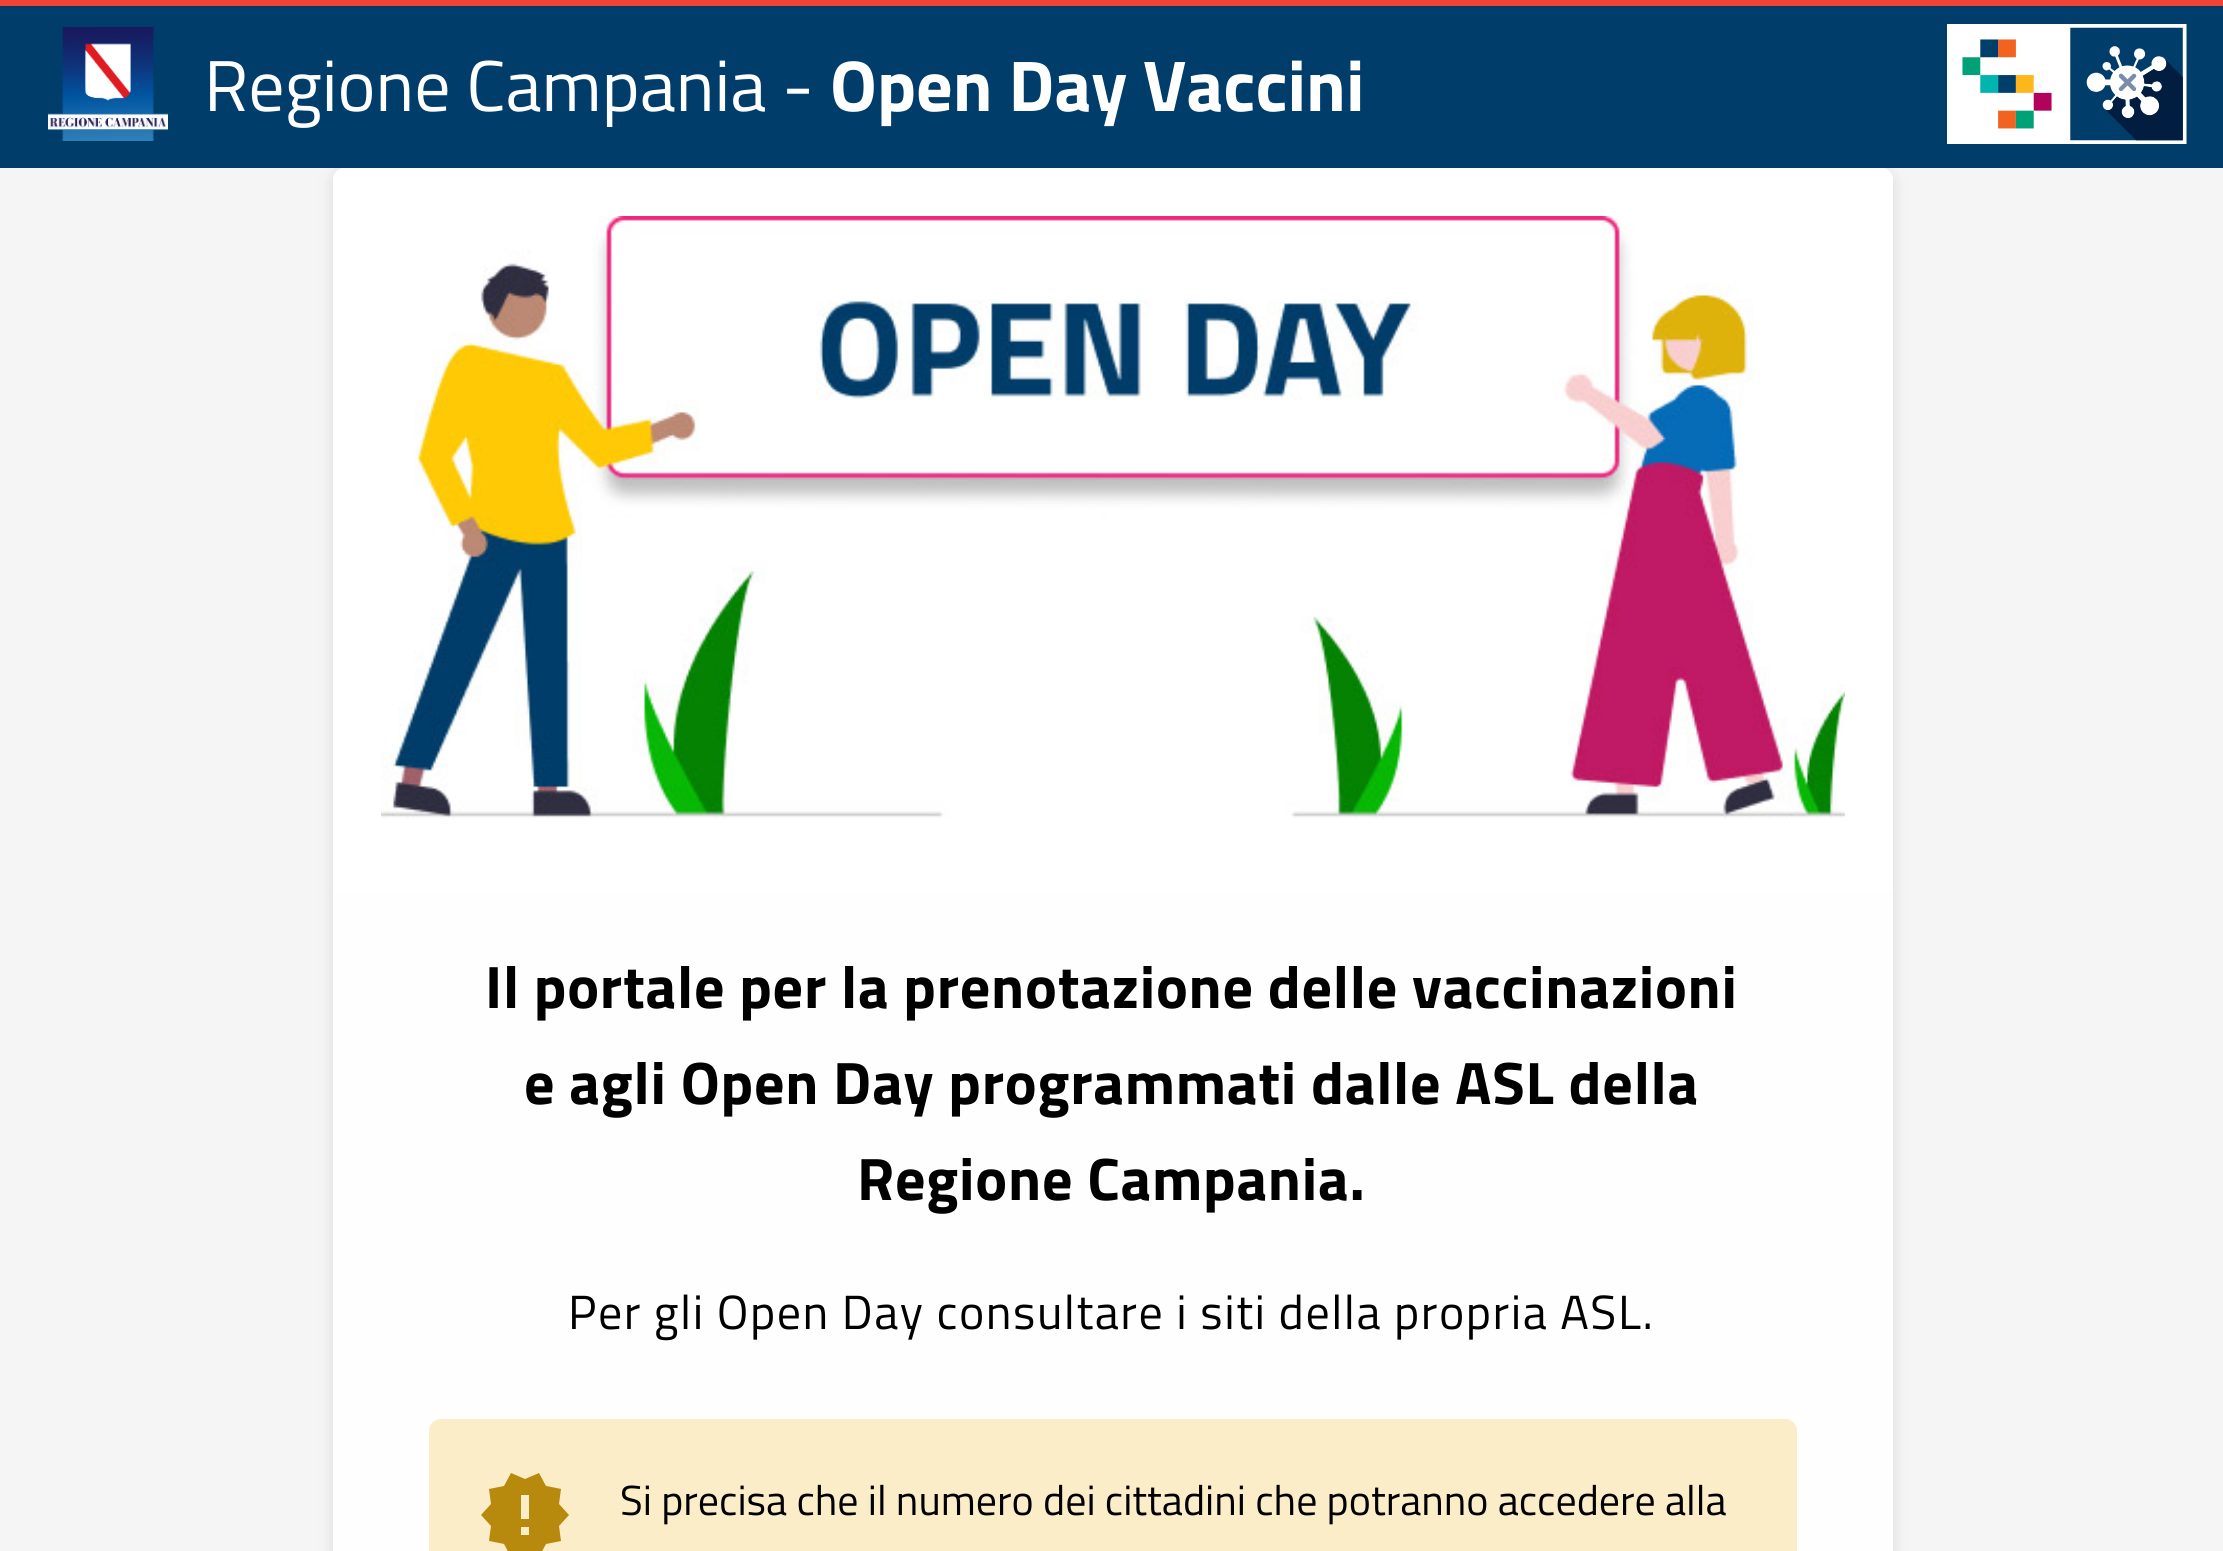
#include <cairo.h>
#include <math.h>
#include <stddef.h>


static void set_color(cairo_t *cr, unsigned color) {
    cairo_set_source_rgb(cr, (color >> 16) / 255.0, (color >> 8 & 255) / 255.0, (color & 255) / 255.0);
}

static void draw_text(cairo_t *cr, double x, double y, const char *s, const char *family, double size, int italic, int bold, unsigned color) {
    cairo_select_font_face(cr, family, italic ? CAIRO_FONT_SLANT_ITALIC : CAIRO_FONT_SLANT_NORMAL,
        bold ? CAIRO_FONT_WEIGHT_BOLD : CAIRO_FONT_WEIGHT_NORMAL);
    cairo_set_font_size(cr, size);
    set_color(cr, color);
    cairo_move_to(cr, x, y);
    cairo_show_text(cr, s);
}

static void draw_spaced(cairo_t *cr, double x, double y, const char *s, double letter, double word) {
    cairo_move_to(cr, x, y);
    while (*s) {
        char ch[5] = {0};
        int n = 0;
        do ch[n++] = *s++; while ((*s & 0xC0) == 0x80);
        cairo_show_text(cr, ch);
        cairo_rel_move_to(cr, letter + word * (*ch == ' '), 0);
    }
}

static void fill_rect(cairo_t *cr, double x, double y, double w, double h, unsigned color) {
    set_color(cr, color);
    cairo_rectangle(cr, x, y, w, h);
    cairo_fill(cr);
}

static void rounded_rect(cairo_t *cr, double x, double y, double w, double h, double r) {
    cairo_new_sub_path(cr);
    cairo_arc(cr, x + w - r, y + h - r, r, 0, M_PI / 2);
    cairo_arc(cr, x + r, y + h - r, r, M_PI / 2, M_PI);
    cairo_arc(cr, x + r, y + r, r, M_PI, 1.5 * M_PI);
    cairo_arc(cr, x + w - r, y + r, r, 1.5 * M_PI, 2 * M_PI);
    cairo_close_path(cr);
}

static void draw_shadow(cairo_t *cr, double x, double y, double w, double h, double r, double blur, double alpha) {
    cairo_push_group_with_content(cr, CAIRO_CONTENT_ALPHA);
    cairo_set_operator(cr, CAIRO_OPERATOR_SOURCE);
    for (int i = 15; i >= -15 && fmin(w, h) + blur * i / 3 > 0; i -= 2) {
        double e = blur * i / 6;
        cairo_set_source_rgba(cr, 0, 0, 0, alpha * erfc((i - 1) / 8.5) / 2);
        rounded_rect(cr, x - e, y - e, w + 2 * e, h + 2 * e, fmax(0, fmin(r + e + blur * .6, fmin(w, h) / 2 + e)));
        cairo_fill(cr);
    }
    cairo_pattern_t *soft = cairo_pop_group(cr);
    cairo_mask(cr, soft);
    cairo_pattern_destroy(soft);
}

static void draw_image(cairo_t *cr, const char *path, double x, double y, double w, double h) {
    cairo_surface_t *image = cairo_image_surface_create_from_png(path);
    cairo_save(cr);
    cairo_set_source_surface(cr, image, x, y);
    cairo_rectangle(cr, x, y, w, h);
    cairo_fill(cr);
    cairo_restore(cr);
    cairo_surface_destroy(image);
}

int main(void) {
    cairo_surface_t *surface = cairo_image_surface_create(CAIRO_FORMAT_RGB24, 2223, 1551);
    cairo_t *cr = cairo_create(surface);
    cairo_font_options_t *options = cairo_font_options_create();
    cairo_font_options_set_hint_metrics(options, CAIRO_HINT_METRICS_OFF);
    cairo_font_options_set_hint_style(options, CAIRO_HINT_STYLE_NONE);
    cairo_set_font_options(cr, options);
    cairo_set_miter_limit(cr, 4);
    set_color(cr, 0xF5F5F5);
    cairo_paint(cr);
    fill_rect(cr, 0, 0, 2223, 6, 0xF44336);
    cairo_save(cr);
    cairo_set_fill_rule(cr, CAIRO_FILL_RULE_EVEN_ODD);
    cairo_new_path(cr);
    cairo_move_to(cr, 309, 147);
    cairo_line_to(cr, 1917, 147);
    cairo_line_to(cr, 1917, 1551);
    cairo_line_to(cr, 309, 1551);
    cairo_close_path(cr);
    cairo_move_to(cr, 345, 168);
    cairo_line_to(cr, 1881, 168);
    cairo_curve_to(cr, 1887.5, 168, 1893, 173.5, 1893, 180);
    cairo_line_to(cr, 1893, 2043);
    cairo_curve_to(cr, 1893, 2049.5, 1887.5, 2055, 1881, 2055);
    cairo_line_to(cr, 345, 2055);
    cairo_curve_to(cr, 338.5, 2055, 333, 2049.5, 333, 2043);
    cairo_line_to(cr, 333, 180);
    cairo_curve_to(cr, 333, 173.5, 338.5, 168, 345, 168);
    cairo_close_path(cr);
    cairo_clip(cr);
    set_color(cr, 0x666666);
    draw_shadow(cr, 333, 171, 1560, 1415, 12, 7.5, 0.2);
    cairo_restore(cr);
    fill_rect(cr, 0, 6, 2223, 162, 0x003D6A);
    draw_image(cr, "assets/img1.png", 48, 27, 120, 114);
    draw_text(cr, 204, 111, "Regione Campania -", "Titillium Web", 72, 0, 0, 0xFFFFFF);
    draw_text(cr, 830, 111, "Open Day Vaccini", "Titillium Web", 72, 0, 1, 0xFFFFFF);
    draw_image(cr, "assets/img2.png", 1947, 24, 240, 120);
    cairo_set_source_rgba(cr, 1, 1, 1, 0.9);
    rounded_rect(cr, 333, 168, 1560, 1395, 12);
    cairo_fill(cr);
    set_color(cr, 0xFFFFFF);
    cairo_new_path(cr);
    cairo_move_to(cr, 345, 168);
    cairo_line_to(cr, 1881, 168);
    cairo_curve_to(cr, 1887.5, 168, 1893, 173.5, 1893, 180);
    cairo_line_to(cr, 1893, 891);
    cairo_line_to(cr, 333, 891);
    cairo_line_to(cr, 333, 180);
    cairo_curve_to(cr, 333, 173.5, 338.5, 168, 345, 168);
    cairo_close_path(cr);
    cairo_fill(cr);
    draw_image(cr, "assets/img3.png", 381, 216, 1464, 603);
    cairo_set_font_size(cr, 60);
    set_color(cr, 0x000000);
    draw_spaced(cr, 485, 1008, "Il portale per la prenotazione delle vaccinazioni", 0.75, 0);
    draw_spaced(cr, 524, 1104, "e agli Open Day programmati dalle ASL della", 0.75, 0);
    draw_spaced(cr, 857, 1200, "Regione Campania.", 0.75, 0);
    cairo_select_font_face(cr, "Titillium Web", CAIRO_FONT_SLANT_NORMAL, CAIRO_FONT_WEIGHT_NORMAL);
    cairo_set_font_size(cr, 48);
    draw_spaced(cr, 568, 1329, "Per gli Open Day consultare i siti della propria ASL.", 1.5, 0);
    set_color(cr, 0xFBEDC7);
    rounded_rect(cr, 429, 1419, 1368, 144, 12);
    cairo_fill(cr);
    set_color(cr, 0xB7890C);
    cairo_new_path(cr);
    cairo_move_to(cr, 529, 1519);
    cairo_line_to(cr, 529, 1495);
    cairo_line_to(cr, 521, 1495);
    cairo_line_to(cr, 521, 1519);
    cairo_close_path(cr);
    cairo_move_to(cr, 529, 1535);
    cairo_line_to(cr, 529, 1527);
    cairo_line_to(cr, 521, 1527);
    cairo_line_to(cr, 521, 1535);
    cairo_close_path(cr);
    cairo_move_to(cr, 569, 1515);
    cairo_line_to(cr, 559, 1526);
    cairo_line_to(cr, 561, 1541);
    cairo_line_to(cr, 546, 1544);
    cairo_line_to(cr, 539, 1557);
    cairo_line_to(cr, 525, 1551);
    cairo_line_to(cr, 511, 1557);
    cairo_line_to(cr, 504, 1544);
    cairo_line_to(cr, 489, 1541);
    cairo_line_to(cr, 491, 1526);
    cairo_line_to(cr, 481, 1515);
    cairo_line_to(cr, 491, 1504);
    cairo_line_to(cr, 489, 1489);
    cairo_line_to(cr, 504, 1486);
    cairo_line_to(cr, 511, 1473);
    cairo_line_to(cr, 525, 1479);
    cairo_line_to(cr, 539, 1473);
    cairo_line_to(cr, 546, 1486);
    cairo_line_to(cr, 561, 1489);
    cairo_line_to(cr, 559, 1504);
    cairo_close_path(cr);
    cairo_fill(cr);
    draw_text(cr, 620, 1515, "Si precisa che il numero dei cittadini che potranno accedere alla", "Titillium Web", 42, 0, 0, 0x000000);
    cairo_surface_write_to_png(surface, "output.png");
    cairo_font_options_destroy(options);
    cairo_destroy(cr);
    cairo_surface_destroy(surface);
    return 0;
}
